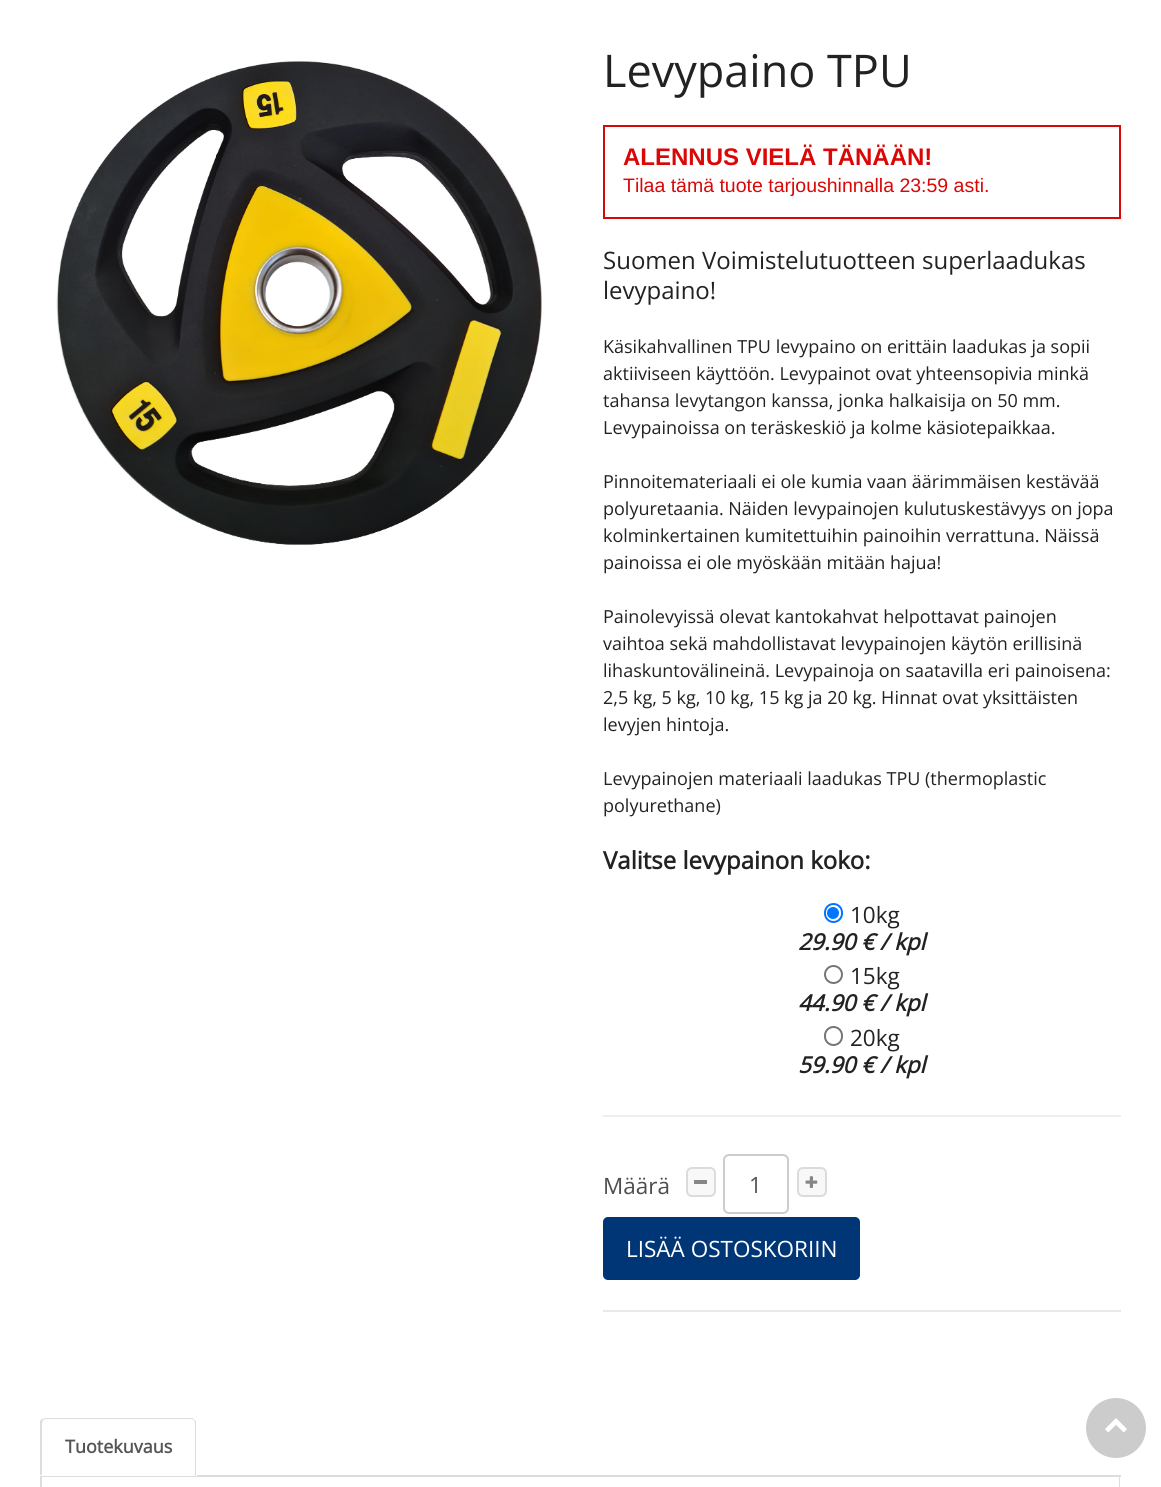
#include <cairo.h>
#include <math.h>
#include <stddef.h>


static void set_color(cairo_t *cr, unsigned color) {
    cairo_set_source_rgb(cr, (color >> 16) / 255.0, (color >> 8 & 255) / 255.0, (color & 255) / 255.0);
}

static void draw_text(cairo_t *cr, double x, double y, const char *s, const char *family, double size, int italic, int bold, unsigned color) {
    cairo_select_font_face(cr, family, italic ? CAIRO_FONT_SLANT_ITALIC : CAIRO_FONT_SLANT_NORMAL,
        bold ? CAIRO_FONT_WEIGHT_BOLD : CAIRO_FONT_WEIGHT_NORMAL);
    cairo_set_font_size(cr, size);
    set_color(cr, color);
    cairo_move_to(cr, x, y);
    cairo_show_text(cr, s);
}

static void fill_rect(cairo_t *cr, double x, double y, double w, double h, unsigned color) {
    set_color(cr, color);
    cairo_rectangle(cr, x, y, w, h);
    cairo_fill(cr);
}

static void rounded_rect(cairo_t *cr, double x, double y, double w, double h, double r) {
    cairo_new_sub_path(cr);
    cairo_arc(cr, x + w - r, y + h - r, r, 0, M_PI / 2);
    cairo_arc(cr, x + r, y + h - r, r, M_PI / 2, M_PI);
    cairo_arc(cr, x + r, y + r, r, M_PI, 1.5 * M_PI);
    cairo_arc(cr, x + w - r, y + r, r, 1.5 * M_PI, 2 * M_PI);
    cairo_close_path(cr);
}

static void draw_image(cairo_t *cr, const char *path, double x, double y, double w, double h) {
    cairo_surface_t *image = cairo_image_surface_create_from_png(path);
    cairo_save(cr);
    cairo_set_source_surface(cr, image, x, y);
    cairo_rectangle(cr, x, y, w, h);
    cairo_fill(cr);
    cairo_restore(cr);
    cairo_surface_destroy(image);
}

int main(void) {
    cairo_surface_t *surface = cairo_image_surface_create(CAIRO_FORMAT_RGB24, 1161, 1487);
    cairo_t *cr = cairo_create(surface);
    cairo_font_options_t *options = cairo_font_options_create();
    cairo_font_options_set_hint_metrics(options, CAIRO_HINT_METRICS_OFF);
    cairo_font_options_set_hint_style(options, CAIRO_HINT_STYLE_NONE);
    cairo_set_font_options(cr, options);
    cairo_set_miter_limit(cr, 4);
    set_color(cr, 0xFFFFFF);
    cairo_paint(cr);
    draw_image(cr, "assets/img1.png", 56, 61, 486, 484);
    draw_text(cr, 603, 87, "Levypaino TPU", "Open Sans", 45, 0, 0, 0x222222);
    cairo_rectangle(cr, 604, 126, 516, 92);
    set_color(cr, 0xDA0707);
    cairo_stroke(cr);
    draw_text(cr, 623, 165, "ALENNUS VIELÄ TÄNÄÄN!", "Liberation Sans", 24, 0, 1, 0xDA0707);
    draw_text(cr, 623, 192, "Tilaa tämä tuote tarjoushinnalla 23:59 asti.", "Liberation Sans", 19.5, 0, 0, 0xDA0707);
    draw_text(cr, 603, 269, "Suomen Voimistelutuotteen superlaadukas", "Open Sans", 24, 0, 0, 0x222222);
    draw_text(cr, 603, 299, "levypaino!", "Open Sans", 24, 0, 0, 0x222222);
    draw_text(cr, 603, 353, "Käsikahvallinen TPU levypaino on erittäin laadukas ja sopii", "Open Sans", 18, 0, 0, 0x222222);
    draw_text(cr, 603, 380, "aktiiviseen käyttöön. Levypainot ovat yhteensopivia minkä", "Open Sans", 18, 0, 0, 0x222222);
    draw_text(cr, 603, 407, "tahansa levytangon kanssa, jonka halkaisija on 50 mm.", "Open Sans", 18, 0, 0, 0x222222);
    draw_text(cr, 603, 434, "Levypainoissa on teräskeskiö ja kolme käsiotepaikkaa.", "Open Sans", 18, 0, 0, 0x222222);
    draw_text(cr, 603, 488, "Pinnoitemateriaali ei ole kumia vaan äärimmäisen kestävää", "Open Sans", 18, 0, 0, 0x222222);
    draw_text(cr, 603, 515, "polyuretaania. Näiden levypainojen kulutuskestävyys on jopa", "Open Sans", 18, 0, 0, 0x222222);
    draw_text(cr, 603, 542, "kolminkertainen kumitettuihin painoihin verrattuna. Näissä", "Open Sans", 18, 0, 0, 0x222222);
    draw_text(cr, 603, 569, "painoissa ei ole myöskään mitään hajua!", "Open Sans", 18, 0, 0, 0x222222);
    draw_text(cr, 603, 623, "Painolevyissä olevat kantokahvat helpottavat painojen", "Open Sans", 18, 0, 0, 0x222222);
    draw_text(cr, 603, 650, "vaihtoa sekä mahdollistavat levypainojen käytön erillisinä", "Open Sans", 18, 0, 0, 0x222222);
    draw_text(cr, 603, 677, "lihaskuntovälineinä. Levypainoja on saatavilla eri painoisena:", "Open Sans", 18, 0, 0, 0x222222);
    draw_text(cr, 603, 704, "2,5 kg, 5 kg, 10 kg, 15 kg ja 20 kg. Hinnat ovat yksittäisten", "Open Sans", 18, 0, 0, 0x222222);
    draw_text(cr, 603, 731, "levyjen hintoja.", "Open Sans", 18, 0, 0, 0x222222);
    draw_text(cr, 603, 785, "Levypainojen materiaali laadukas TPU (thermoplastic", "Open Sans", 18, 0, 0, 0x222222);
    draw_text(cr, 603, 812, "polyurethane)", "Open Sans", 18, 0, 0, 0x222222);
    draw_text(cr, 603, 869, "Valitse levypainon koko:", "Open Sans", 24, 0, 1, 0x222222);
    rounded_rect(cr, 825, 904, 17, 18, 8.5);
    set_color(cr, 0x0075FF);
    cairo_stroke(cr);
    cairo_arc(cr, 833, 913, 6, 0, 2 * M_PI);
    cairo_fill(cr);
    draw_text(cr, 850, 923, "10kg", "Open Sans", 22.5, 0, 0, 0x222222);
    draw_text(cr, 798, 950, "29.90 € / kpl", "Open Sans", 22.5, 1, 1, 0x222222);
    cairo_new_path(cr);
    cairo_arc(cr, 833.5, 974.5, 8.5, 0, 2 * M_PI);
    set_color(cr, 0x767676);
    cairo_stroke(cr);
    draw_text(cr, 850, 984, "15kg", "Open Sans", 22.5, 0, 0, 0x222222);
    draw_text(cr, 798, 1011, "44.90 € / kpl", "Open Sans", 22.5, 1, 1, 0x222222);
    rounded_rect(cr, 825, 1027, 17, 18, 8.5);
    set_color(cr, 0x767676);
    cairo_stroke(cr);
    draw_text(cr, 850, 1046, "20kg", "Open Sans", 22.5, 0, 0, 0x222222);
    draw_text(cr, 798, 1073, "59.90 € / kpl", "Open Sans", 22.5, 1, 1, 0x222222);
    fill_rect(cr, 603, 1115, 518, 2, 0xEEEEEE);
    fill_rect(cr, 603, 1310, 518, 2, 0xEAE9E9);
    draw_text(cr, 603, 1194, "Määrä", "Open Sans", 22.5, 0, 0, 0x4D4D4D);
    set_color(cr, 0xF8F8F8);
    rounded_rect(cr, 687, 1168, 28, 28, 5);
    cairo_fill_preserve(cr);
    set_color(cr, 0xDBDBDB);
    cairo_stroke(cr);
    fill_rect(cr, 694, 1180, 13, 4, 0x868686);
    set_color(cr, 0xECECEC);
    cairo_new_path(cr);
    cairo_move_to(cr, 729, 1156);
    cairo_line_to(cr, 783, 1156);
    cairo_curve_to(cr, 785, 1156, 788, 1159, 788, 1161);
    cairo_line_to(cr, 788, 1160);
    cairo_curve_to(cr, 788, 1157, 786, 1155, 783, 1155);
    cairo_line_to(cr, 730, 1155);
    cairo_curve_to(cr, 728, 1155, 726, 1156, 725, 1158);
    cairo_curve_to(cr, 726, 1157, 728, 1156, 729, 1156);
    cairo_close_path(cr);
    cairo_fill(cr);
    rounded_rect(cr, 724, 1155, 64, 58, 5);
    set_color(cr, 0xCCCCCC);
    cairo_stroke(cr);
    draw_text(cr, 749, 1193, "1", "Open Sans", 22.5, 0, 0, 0x555555);
    set_color(cr, 0xF8F8F8);
    rounded_rect(cr, 798, 1168, 28, 28, 5);
    cairo_fill_preserve(cr);
    set_color(cr, 0xDBDBDB);
    cairo_stroke(cr);
    draw_image(cr, "assets/img2.png", 805, 1176, 13, 12);
    set_color(cr, 0x003676);
    rounded_rect(cr, 603, 1217, 257, 63, 5);
    cairo_fill(cr);
    draw_text(cr, 626, 1257, "LISÄÄ OSTOSKORIIN", "Open Sans", 22.5, 0, 0, 0xFFFFFF);
    fill_rect(cr, 41, 1475, 1080, 2, 0xDDDDDD);
    set_color(cr, 0xFFFFFF);
    cairo_new_path(cr);
    cairo_move_to(cr, 47, 1418);
    cairo_line_to(cr, 191, 1418);
    cairo_curve_to(cr, 194.5, 1418, 197, 1420.5, 197, 1424);
    cairo_line_to(cr, 197, 1476);
    cairo_line_to(cr, 41, 1476);
    cairo_line_to(cr, 41, 1424);
    cairo_curve_to(cr, 41, 1420.5, 43.5, 1418, 47, 1418);
    cairo_close_path(cr);
    cairo_fill(cr);
    set_color(cr, 0xDDDDDD);
    cairo_new_path(cr);
    cairo_move_to(cr, 46, 1418);
    cairo_line_to(cr, 42, 1419);
    cairo_line_to(cr, 43, 1420);
    cairo_line_to(cr, 46, 1419);
    cairo_line_to(cr, 191, 1419);
    cairo_line_to(cr, 194, 1420);
    cairo_curve_to(cr, 194, 1418, 192, 1418, 190, 1418);
    cairo_close_path(cr);
    cairo_fill(cr);
    cairo_new_path(cr);
    cairo_move_to(cr, 196, 1476);
    cairo_line_to(cr, 196, 1424);
    cairo_curve_to(cr, 196, 1422, 196, 1420, 194, 1420);
    cairo_curve_to(cr, 194, 1421, 195, 1422, 195, 1424);
    cairo_line_to(cr, 195, 1474);
    cairo_line_to(cr, 194, 1474);
    cairo_close_path(cr);
    cairo_fill(cr);
    cairo_new_path(cr);
    cairo_move_to(cr, 40, 1476);
    cairo_line_to(cr, 42, 1474);
    cairo_line_to(cr, 42, 1424);
    cairo_curve_to(cr, 42, 1422, 43, 1421, 43, 1420);
    cairo_line_to(cr, 42, 1419);
    cairo_line_to(cr, 40, 1421);
    cairo_close_path(cr);
    cairo_fill(cr);
    draw_text(cr, 65, 1453, "Tuotekuvaus", "Open Sans", 18, 0, 1, 0x555555);
    set_color(cr, 0xDDDDDD);
    cairo_set_fill_rule(cr, CAIRO_FILL_RULE_EVEN_ODD);
    cairo_new_path(cr);
    cairo_move_to(cr, 40, 1476);
    cairo_line_to(cr, 1120, 1476);
    cairo_line_to(cr, 1120, 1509);
    cairo_curve_to(cr, 1120, 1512, 1118, 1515, 1114, 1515);
    cairo_line_to(cr, 46, 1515);
    cairo_curve_to(cr, 43, 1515, 40, 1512, 40, 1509);
    cairo_close_path(cr);
    cairo_move_to(cr, 42, 1476);
    cairo_line_to(cr, 1119, 1476);
    cairo_line_to(cr, 1119, 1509);
    cairo_curve_to(cr, 1119, 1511, 1117, 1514, 1114, 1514);
    cairo_line_to(cr, 46, 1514);
    cairo_curve_to(cr, 44, 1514, 42, 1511, 42, 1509);
    cairo_close_path(cr);
    cairo_fill(cr);
    set_color(cr, 0xCCCCCC);
    cairo_arc(cr, 1116, 1428, 30, 0, 2 * M_PI);
    cairo_fill(cr);
    draw_image(cr, "assets/img3.png", 1105, 1418, 22, 15);
    cairo_surface_write_to_png(surface, "output.png");
    cairo_font_options_destroy(options);
    cairo_destroy(cr);
    cairo_surface_destroy(surface);
    return 0;
}
